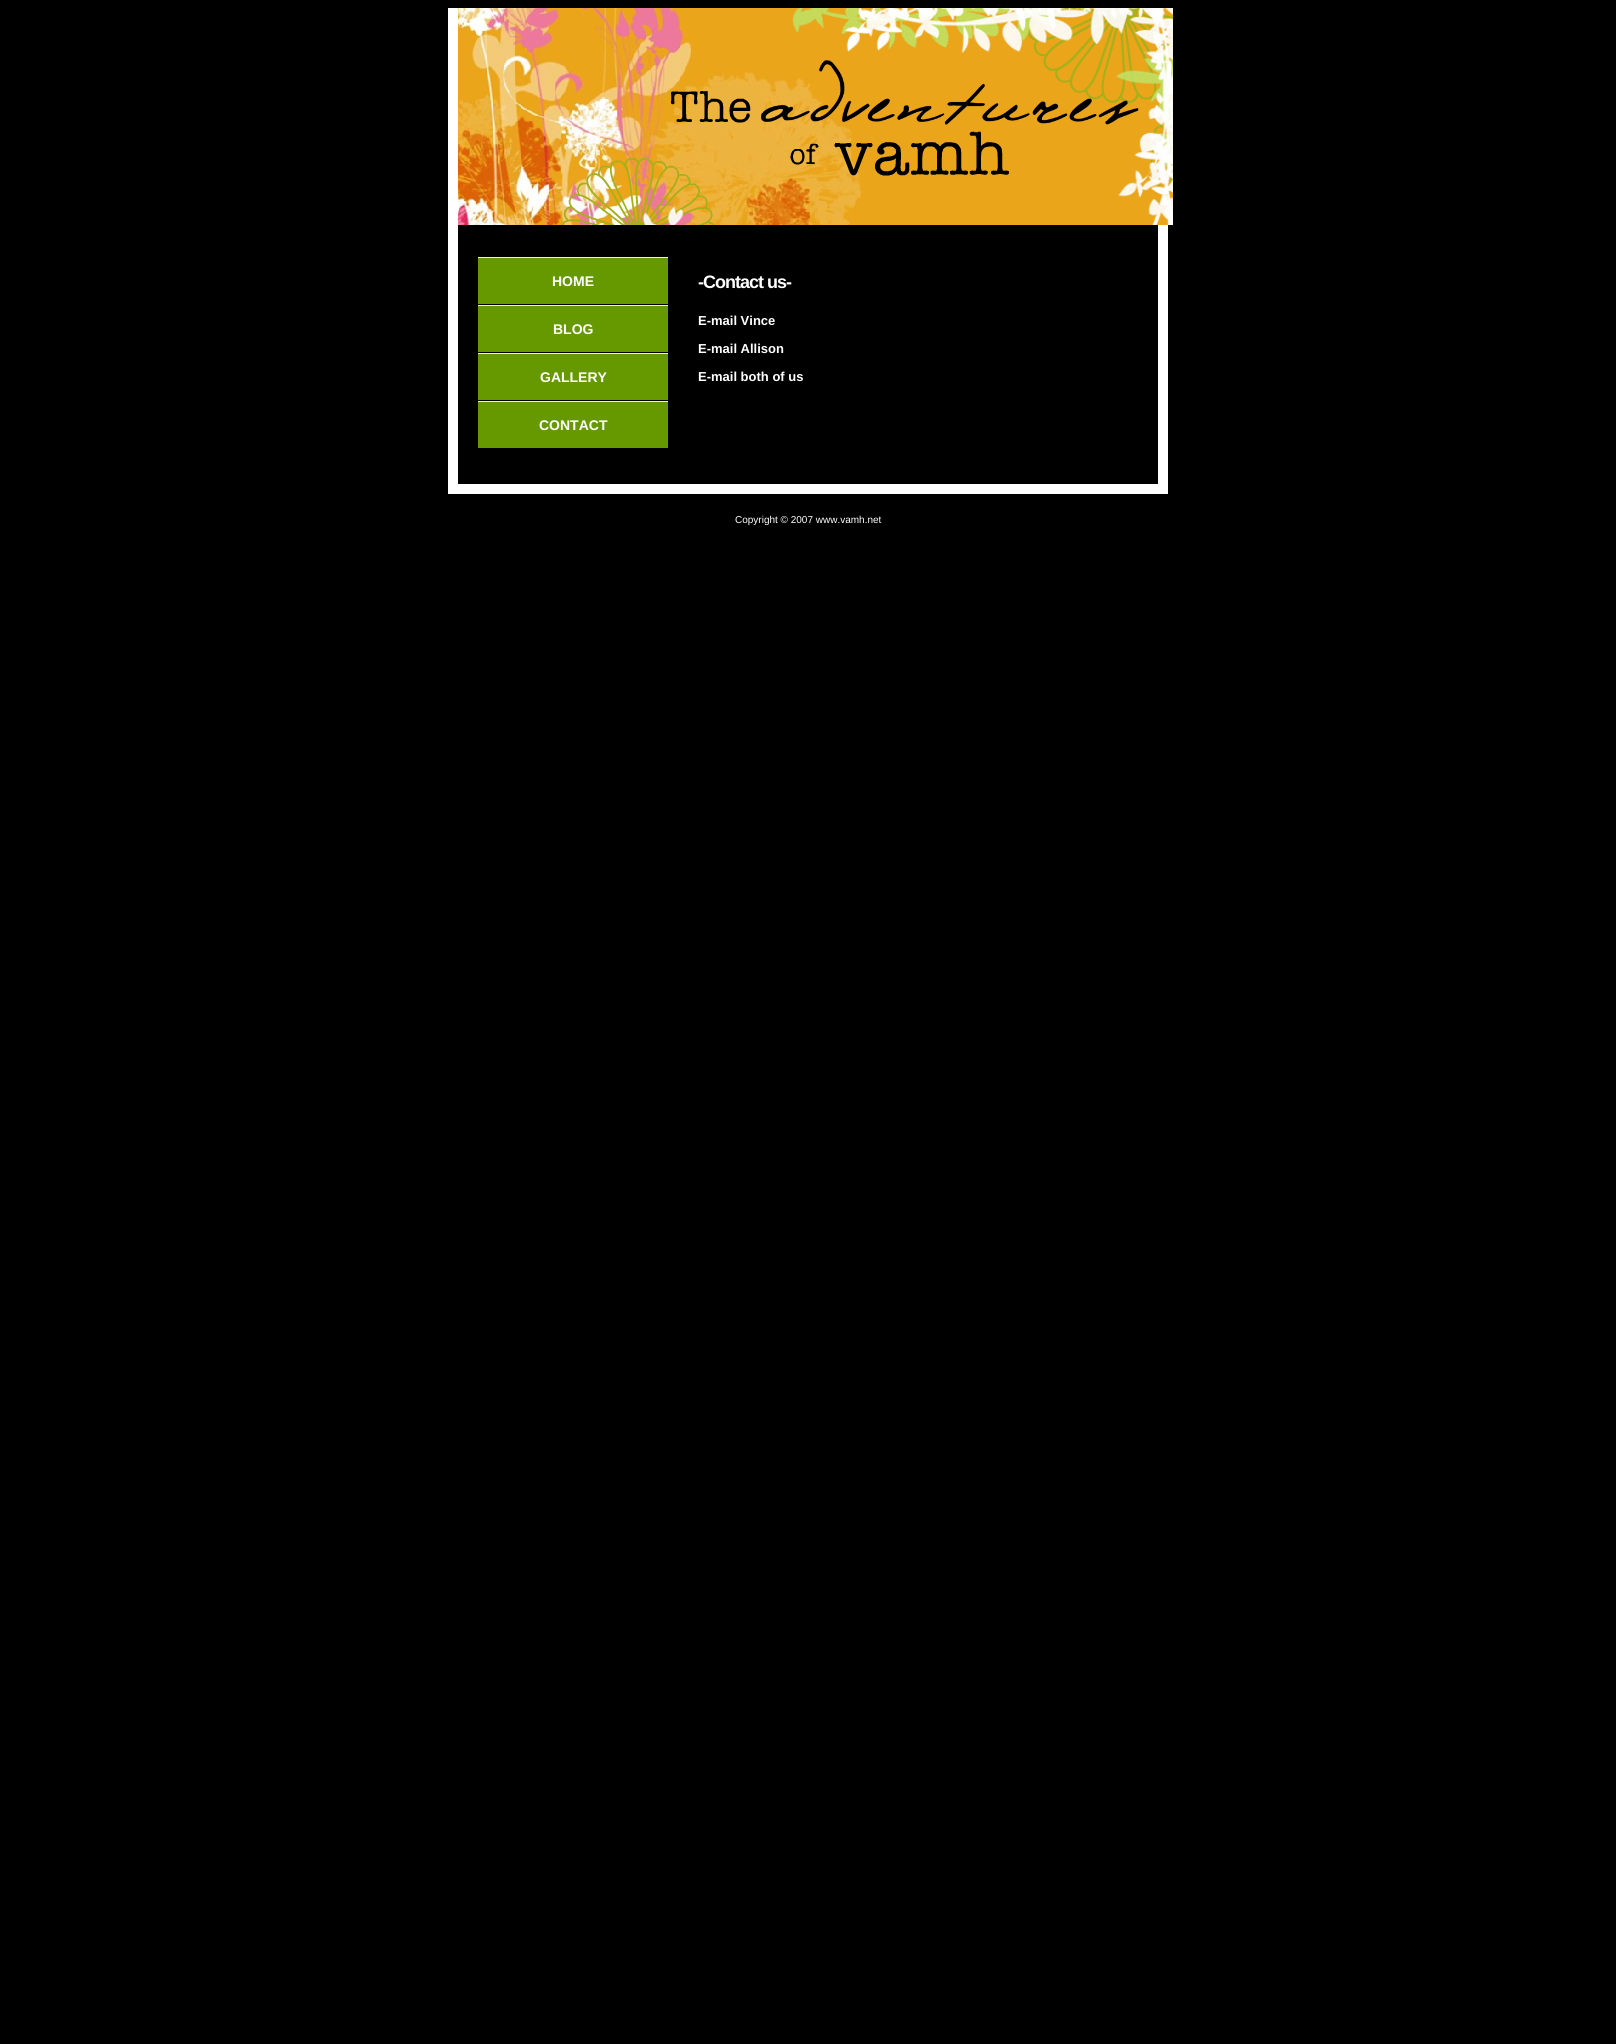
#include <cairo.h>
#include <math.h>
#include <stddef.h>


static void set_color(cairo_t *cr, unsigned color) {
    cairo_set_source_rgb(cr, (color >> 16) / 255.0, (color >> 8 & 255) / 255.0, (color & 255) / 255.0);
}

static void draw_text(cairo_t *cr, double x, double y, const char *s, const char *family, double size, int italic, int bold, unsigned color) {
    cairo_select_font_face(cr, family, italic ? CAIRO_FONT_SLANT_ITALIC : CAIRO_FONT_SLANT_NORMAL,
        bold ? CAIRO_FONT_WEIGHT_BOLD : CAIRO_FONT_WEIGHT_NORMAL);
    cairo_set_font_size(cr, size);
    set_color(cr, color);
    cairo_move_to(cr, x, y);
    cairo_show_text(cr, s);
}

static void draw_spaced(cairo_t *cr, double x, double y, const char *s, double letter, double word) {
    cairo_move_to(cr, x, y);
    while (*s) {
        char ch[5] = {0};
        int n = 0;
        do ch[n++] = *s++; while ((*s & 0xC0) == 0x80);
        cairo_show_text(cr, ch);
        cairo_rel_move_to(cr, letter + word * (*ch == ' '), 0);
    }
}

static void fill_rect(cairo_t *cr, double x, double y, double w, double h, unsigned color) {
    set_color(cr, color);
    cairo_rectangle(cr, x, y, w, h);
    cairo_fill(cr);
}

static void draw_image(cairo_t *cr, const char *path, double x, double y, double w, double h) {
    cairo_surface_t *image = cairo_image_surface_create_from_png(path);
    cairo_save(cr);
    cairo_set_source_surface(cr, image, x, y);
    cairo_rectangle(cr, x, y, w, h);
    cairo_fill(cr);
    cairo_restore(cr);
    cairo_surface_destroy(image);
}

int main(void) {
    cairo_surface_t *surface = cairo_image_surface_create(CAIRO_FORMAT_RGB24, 1616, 2044);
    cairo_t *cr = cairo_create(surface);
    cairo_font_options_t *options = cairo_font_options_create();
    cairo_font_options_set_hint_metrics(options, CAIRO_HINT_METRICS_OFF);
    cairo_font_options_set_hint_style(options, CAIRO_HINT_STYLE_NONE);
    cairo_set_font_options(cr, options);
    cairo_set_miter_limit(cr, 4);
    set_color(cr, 0x000000);
    cairo_paint(cr);
    draw_image(cr, "assets/img1.png", 458, 8, 715, 217);
    fill_rect(cr, 1158, 225, 10, 259, 0xFFFFFF);
    fill_rect(cr, 458, 484, 710, 10, 0xFFFFFF);
    fill_rect(cr, 448, 8, 10, 486, 0xFFFFFF);
    fill_rect(cr, 478, 258, 190, 46, 0x669900);
    fill_rect(cr, 478, 257, 190, 1, 0xEDEDED);
    draw_text(cr, 552, 286, "HOME", "Liberation Sans", 14, 0, 1, 0xFFFFFF);
    fill_rect(cr, 478, 306, 190, 46, 0x669900);
    fill_rect(cr, 478, 305, 190, 1, 0xEDEDED);
    draw_text(cr, 553, 334, "BLOG", "Liberation Sans", 14, 0, 1, 0xFFFFFF);
    fill_rect(cr, 478, 354, 190, 46, 0x669900);
    fill_rect(cr, 478, 353, 190, 1, 0xEDEDED);
    draw_text(cr, 540, 382, "GALLERY", "Liberation Sans", 14, 0, 1, 0xFFFFFF);
    fill_rect(cr, 478, 402, 190, 46, 0x669900);
    fill_rect(cr, 478, 401, 190, 1, 0xEDEDED);
    draw_text(cr, 539, 430, "CONTACT", "Liberation Sans", 14, 0, 1, 0xFFFFFF);
    cairo_set_font_size(cr, 18);
    draw_spaced(cr, 698, 288, "-Contact us-", -1, 0);
    draw_text(cr, 698, 325, "E-mail Vince", "Liberation Sans", 13, 0, 1, 0xFFFFFF);
    draw_text(cr, 698, 353, "E-mail Allison", "Liberation Sans", 13, 0, 1, 0xFFFFFF);
    draw_text(cr, 698, 381, "E-mail both of us", "Liberation Sans", 13, 0, 1, 0xFFFFFF);
    draw_text(cr, 735, 523, "Copyright © 2007 www.vamh.net", "Liberation Sans", 10, 0, 0, 0xFFFFFF);
    cairo_surface_write_to_png(surface, "output.png");
    cairo_font_options_destroy(options);
    cairo_destroy(cr);
    cairo_surface_destroy(surface);
    return 0;
}
